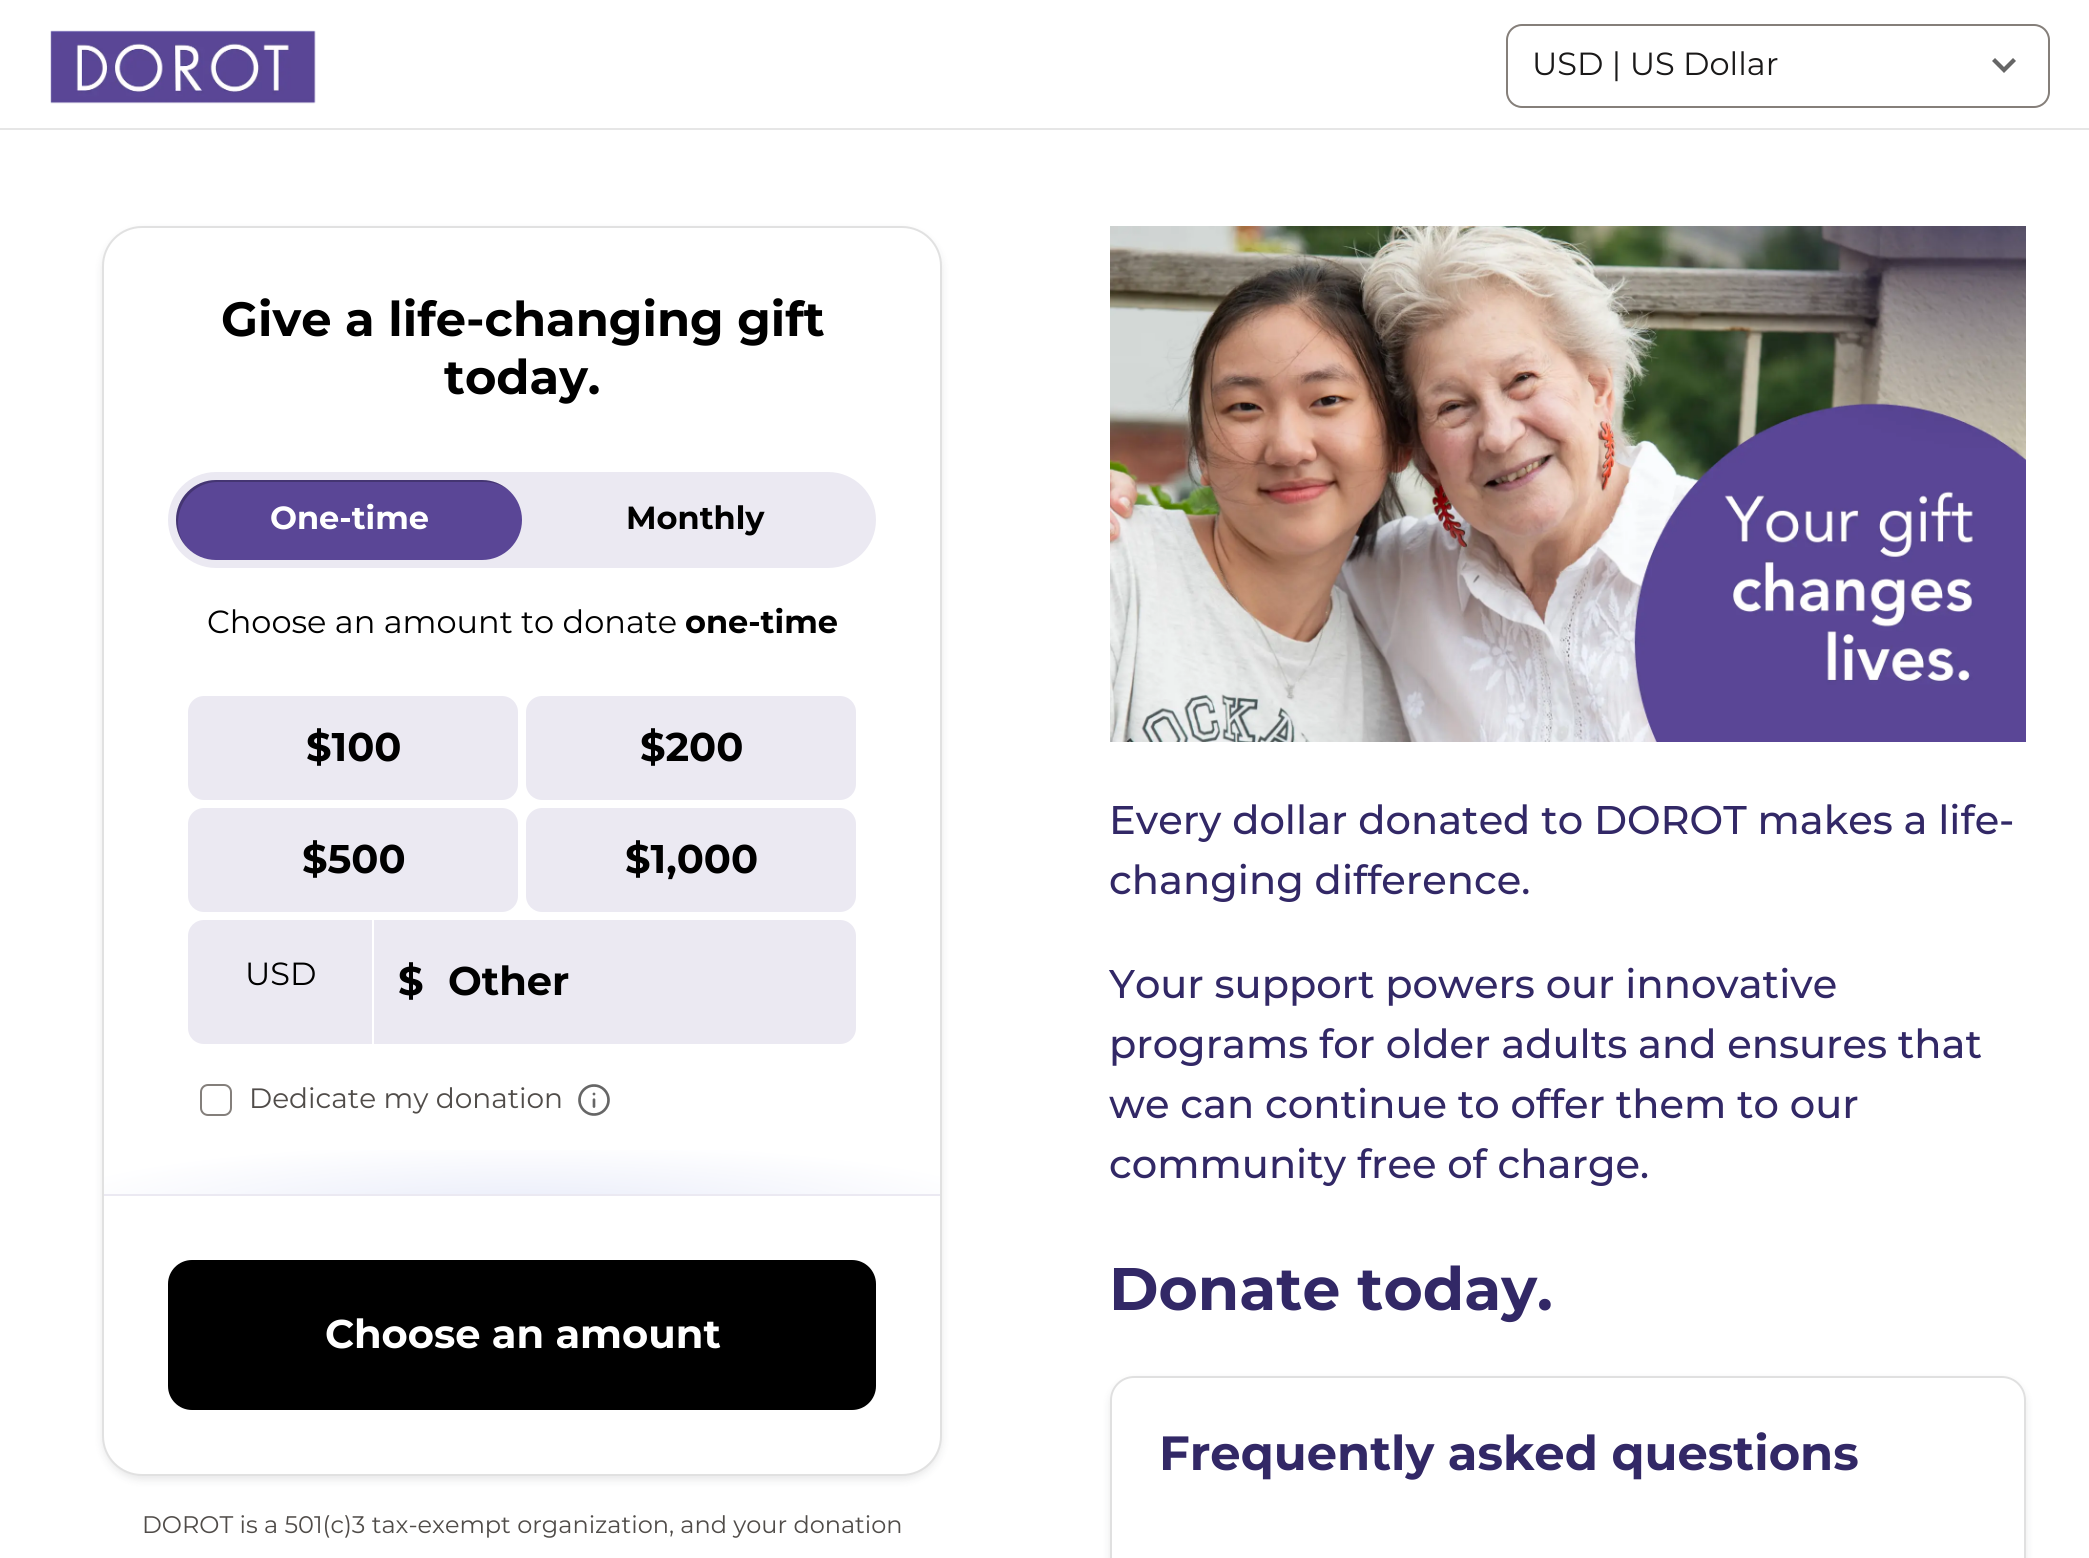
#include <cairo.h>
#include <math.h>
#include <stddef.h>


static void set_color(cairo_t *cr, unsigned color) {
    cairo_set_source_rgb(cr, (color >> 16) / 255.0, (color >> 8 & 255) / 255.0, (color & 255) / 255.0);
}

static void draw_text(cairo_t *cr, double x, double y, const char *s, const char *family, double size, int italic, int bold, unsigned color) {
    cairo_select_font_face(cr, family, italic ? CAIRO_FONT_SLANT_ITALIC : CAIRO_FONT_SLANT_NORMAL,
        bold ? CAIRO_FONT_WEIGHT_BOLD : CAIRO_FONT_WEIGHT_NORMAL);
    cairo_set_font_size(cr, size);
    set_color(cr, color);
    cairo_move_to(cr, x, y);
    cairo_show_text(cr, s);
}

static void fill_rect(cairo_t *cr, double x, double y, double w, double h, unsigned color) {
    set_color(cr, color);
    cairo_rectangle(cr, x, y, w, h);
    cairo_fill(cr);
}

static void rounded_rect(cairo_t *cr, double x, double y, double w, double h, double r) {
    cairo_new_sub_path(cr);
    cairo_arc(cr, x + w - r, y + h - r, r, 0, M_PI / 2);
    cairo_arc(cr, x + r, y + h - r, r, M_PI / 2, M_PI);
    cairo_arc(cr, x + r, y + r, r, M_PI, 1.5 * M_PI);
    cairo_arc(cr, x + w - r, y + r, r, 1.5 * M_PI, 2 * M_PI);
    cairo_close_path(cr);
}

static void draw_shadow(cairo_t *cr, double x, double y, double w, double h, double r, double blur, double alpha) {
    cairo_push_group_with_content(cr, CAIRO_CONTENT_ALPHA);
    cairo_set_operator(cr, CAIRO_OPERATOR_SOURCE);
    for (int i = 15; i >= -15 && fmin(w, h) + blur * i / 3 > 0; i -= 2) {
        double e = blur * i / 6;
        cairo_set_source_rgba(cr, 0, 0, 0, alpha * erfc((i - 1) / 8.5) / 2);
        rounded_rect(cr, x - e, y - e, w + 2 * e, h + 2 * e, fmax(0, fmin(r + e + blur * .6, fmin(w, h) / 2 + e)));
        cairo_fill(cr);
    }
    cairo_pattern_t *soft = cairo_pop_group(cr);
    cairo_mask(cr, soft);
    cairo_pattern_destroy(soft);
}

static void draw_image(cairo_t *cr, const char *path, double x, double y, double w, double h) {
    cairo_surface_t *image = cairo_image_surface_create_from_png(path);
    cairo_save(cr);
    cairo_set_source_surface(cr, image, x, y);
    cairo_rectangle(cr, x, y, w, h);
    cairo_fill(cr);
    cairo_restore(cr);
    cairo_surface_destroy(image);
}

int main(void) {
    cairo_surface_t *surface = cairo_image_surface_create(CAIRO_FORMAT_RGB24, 2089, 1558);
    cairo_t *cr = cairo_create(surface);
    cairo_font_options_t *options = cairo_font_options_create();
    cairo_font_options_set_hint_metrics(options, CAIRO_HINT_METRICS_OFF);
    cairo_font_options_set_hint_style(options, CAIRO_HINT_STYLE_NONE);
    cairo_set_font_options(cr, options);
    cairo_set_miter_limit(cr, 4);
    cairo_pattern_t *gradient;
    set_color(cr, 0xFFFFFF);
    cairo_paint(cr);
    fill_rect(cr, 0, 128, 2089, 2, 0xE6E6E6);
    draw_image(cr, "assets/img1.png", 50, 30, 266, 74);
    set_color(cr, 0x666666);
    cairo_new_path(cr);
    cairo_move_to(cr, 1995, 58);
    cairo_line_to(cr, 2004, 67);
    cairo_line_to(cr, 2013, 58);
    cairo_line_to(cr, 2016, 61);
    cairo_line_to(cr, 2004, 73);
    cairo_line_to(cr, 1992, 61);
    cairo_close_path(cr);
    cairo_fill(cr);
    rounded_rect(cr, 1507, 25, 542, 82, 15);
    set_color(cr, 0x857F7A);
    cairo_stroke(cr);
    draw_text(cr, 1532, 75, "USD | US Dollar", "Montserrat", 32, 0, 0, 0x1A1919);
    set_color(cr, 0x191D22);
    draw_shadow(cr, 102, 230, 840, 1250, 40, 4, 0.1);
    set_color(cr, 0xFFFFFF);
    rounded_rect(cr, 102, 226, 840, 1250, 40);
    cairo_fill(cr);
    rounded_rect(cr, 103, 227, 838, 1248, 39);
    cairo_set_source_rgba(cr, 0, 0, 0, 0.12);
    cairo_stroke(cr);
    draw_text(cr, 221, 336, "Give a life-changing gift", "Montserrat", 48, 0, 1, 0x000000);
    draw_text(cr, 444, 394, "today.", "Montserrat", 48, 0, 1, 0x000000);
    set_color(cr, 0xEBE9F2);
    rounded_rect(cr, 168, 472, 708, 96, 48);
    cairo_fill(cr);
    set_color(cr, 0x5A4696);
    rounded_rect(cr, 176, 480, 346, 80, 40);
    cairo_fill(cr);
    cairo_set_source_rgba(cr, 0, 0, 0, 0.24);
    cairo_new_path(cr);
    cairo_move_to(cr, 218, 482);
    cairo_line_to(cr, 484, 482);
    cairo_curve_to(cr, 495, 482, 505, 486, 512, 493);
    cairo_curve_to(cr, 504, 485, 494, 480, 482, 480);
    cairo_line_to(cr, 216, 480);
    cairo_curve_to(cr, 194, 480, 176, 498, 176, 520);
    cairo_curve_to(cr, 176, 532, 181, 542, 189, 550);
    cairo_curve_to(cr, 165, 525, 183, 482, 218, 482);
    cairo_close_path(cr);
    cairo_fill(cr);
    draw_text(cr, 270, 529, "One-time", "Montserrat", 32, 0, 1, 0xFFFFFF);
    draw_text(cr, 626, 529, "Monthly", "Montserrat", 32, 0, 1, 0x000000);
    draw_text(cr, 207, 633, "Choose an amount to donate", "Montserrat", 32, 0, 0, 0x000000);
    draw_text(cr, 685, 633, "one-time", "Montserrat", 32, 0, 1, 0x000000);
    set_color(cr, 0xEBE9F2);
    rounded_rect(cr, 188, 696, 330, 104, 16);
    cairo_fill(cr);
    draw_text(cr, 306, 761, "$100", "Montserrat", 40, 0, 1, 0x000000);
    set_color(cr, 0xEBE9F2);
    rounded_rect(cr, 526, 696, 330, 104, 16);
    cairo_fill(cr);
    draw_text(cr, 640, 761, "$200", "Montserrat", 40, 0, 1, 0x000000);
    set_color(cr, 0xEBE9F2);
    rounded_rect(cr, 188, 808, 330, 104, 16);
    cairo_fill(cr);
    draw_text(cr, 302, 873, "$500", "Montserrat", 40, 0, 1, 0x000000);
    set_color(cr, 0xEBE9F2);
    rounded_rect(cr, 526, 808, 330, 104, 16);
    cairo_fill(cr);
    draw_text(cr, 625, 873, "$1,000", "Montserrat", 40, 0, 1, 0x000000);
    set_color(cr, 0xEBE9F2);
    cairo_new_path(cr);
    cairo_move_to(cr, 204, 920);
    cairo_line_to(cr, 372, 920);
    cairo_line_to(cr, 372, 1044);
    cairo_line_to(cr, 204, 1044);
    cairo_curve_to(cr, 195, 1044, 188, 1037, 188, 1028);
    cairo_line_to(cr, 188, 936);
    cairo_curve_to(cr, 188, 927, 195, 920, 204, 920);
    cairo_close_path(cr);
    cairo_fill(cr);
    draw_text(cr, 245, 985, "USD", "Montserrat", 32, 0, 0, 0x000000);
    set_color(cr, 0xEBE9F2);
    cairo_new_path(cr);
    cairo_move_to(cr, 374, 920);
    cairo_line_to(cr, 840, 920);
    cairo_curve_to(cr, 849, 920, 856, 927, 856, 936);
    cairo_line_to(cr, 856, 1028);
    cairo_curve_to(cr, 856, 1037, 849, 1044, 840, 1044);
    cairo_line_to(cr, 374, 1044);
    cairo_close_path(cr);
    cairo_fill(cr);
    draw_text(cr, 398, 995, "$", "Montserrat", 40, 0, 1, 0x000000);
    draw_text(cr, 448, 995, "Other", "Montserrat", 40, 0, 1, 0x000000);
    rounded_rect(cr, 201, 1085, 30, 30, 7);
    set_color(cr, 0x847F7B);
    cairo_stroke(cr);
    draw_text(cr, 249, 1108, "Dedicate my donation", "Montserrat", 28, 0, 0, 0x504C49);
    draw_image(cr, "assets/img2.png", 578, 1084, 32, 32);
    gradient = cairo_pattern_create_radial(0, 0, 0, 0, 0, 1);
    cairo_pattern_set_matrix(gradient, &(cairo_matrix_t){1.0 / 521, 0, 0, 1.0 / 73, -1.0 * 523 / 521, -1.0 * 1212 / 73});
    cairo_pattern_add_color_stop_rgba(gradient, 0, 0.91, 0.922, 0.976, 1);
    cairo_pattern_add_color_stop_rgba(gradient, 0.96, 1, 1, 1, 1);
    cairo_set_source(cr, gradient);
    cairo_pattern_destroy(gradient);
    cairo_rectangle(cr, 104, 1150, 836, 44);
    cairo_fill(cr);
    fill_rect(cr, 104, 1194, 836, 2, 0xEBE9F2);
    set_color(cr, 0x000000);
    rounded_rect(cr, 168, 1260, 708, 150, 24);
    cairo_fill(cr);
    draw_text(cr, 325, 1348, "Choose an amount", "Montserrat", 40, 0, 1, 0xFFFFFF);
    draw_text(cr, 142, 1533, "DOROT is a 501(c)3 tax-exempt organization, and your donation", "Montserrat", 24, 0, 0, 0x504C49);
    draw_image(cr, "assets/img3.png", 1110, 226, 916, 516);
    draw_text(cr, 1109, 834, "Every dollar donated to DOROT makes a life-", "Montserrat Medium", 40, 0, 0, 0x322866);
    draw_text(cr, 1109, 894, "changing difference.", "Montserrat Medium", 40, 0, 0, 0x322866);
    draw_text(cr, 1109, 998, "Your support powers our innovative", "Montserrat Medium", 40, 0, 0, 0x322866);
    draw_text(cr, 1109, 1058, "programs for older adults and ensures that", "Montserrat Medium", 40, 0, 0, 0x322866);
    draw_text(cr, 1109, 1118, "we can continue to offer them to our", "Montserrat Medium", 40, 0, 0, 0x322866);
    draw_text(cr, 1109, 1178, "community free of charge.", "Montserrat Medium", 40, 0, 0, 0x322866);
    draw_text(cr, 1109, 1310, "Donate today.", "Montserrat", 60, 0, 1, 0x322866);
    set_color(cr, 0x191D22);
    draw_shadow(cr, 1110, 1380, 916, 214, 24, 4, 0.1);
    set_color(cr, 0xFFFFFF);
    cairo_new_path(cr);
    cairo_move_to(cr, 1134, 1376);
    cairo_line_to(cr, 2002, 1376);
    cairo_curve_to(cr, 2015.5, 1376, 2026, 1386.5, 2026, 1400);
    cairo_line_to(cr, 2026, 1558);
    cairo_line_to(cr, 1110, 1558);
    cairo_line_to(cr, 1110, 1400);
    cairo_curve_to(cr, 1110, 1386.5, 1120.5, 1376, 1134, 1376);
    cairo_close_path(cr);
    cairo_fill(cr);
    rounded_rect(cr, 1111, 1377, 914, 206, 23);
    set_color(cr, 0xE0E0E0);
    cairo_stroke(cr);
    draw_text(cr, 1159, 1470, "Frequently asked questions", "Montserrat", 48, 0, 1, 0x322866);
    cairo_surface_write_to_png(surface, "output.png");
    cairo_font_options_destroy(options);
    cairo_destroy(cr);
    cairo_surface_destroy(surface);
    return 0;
}
